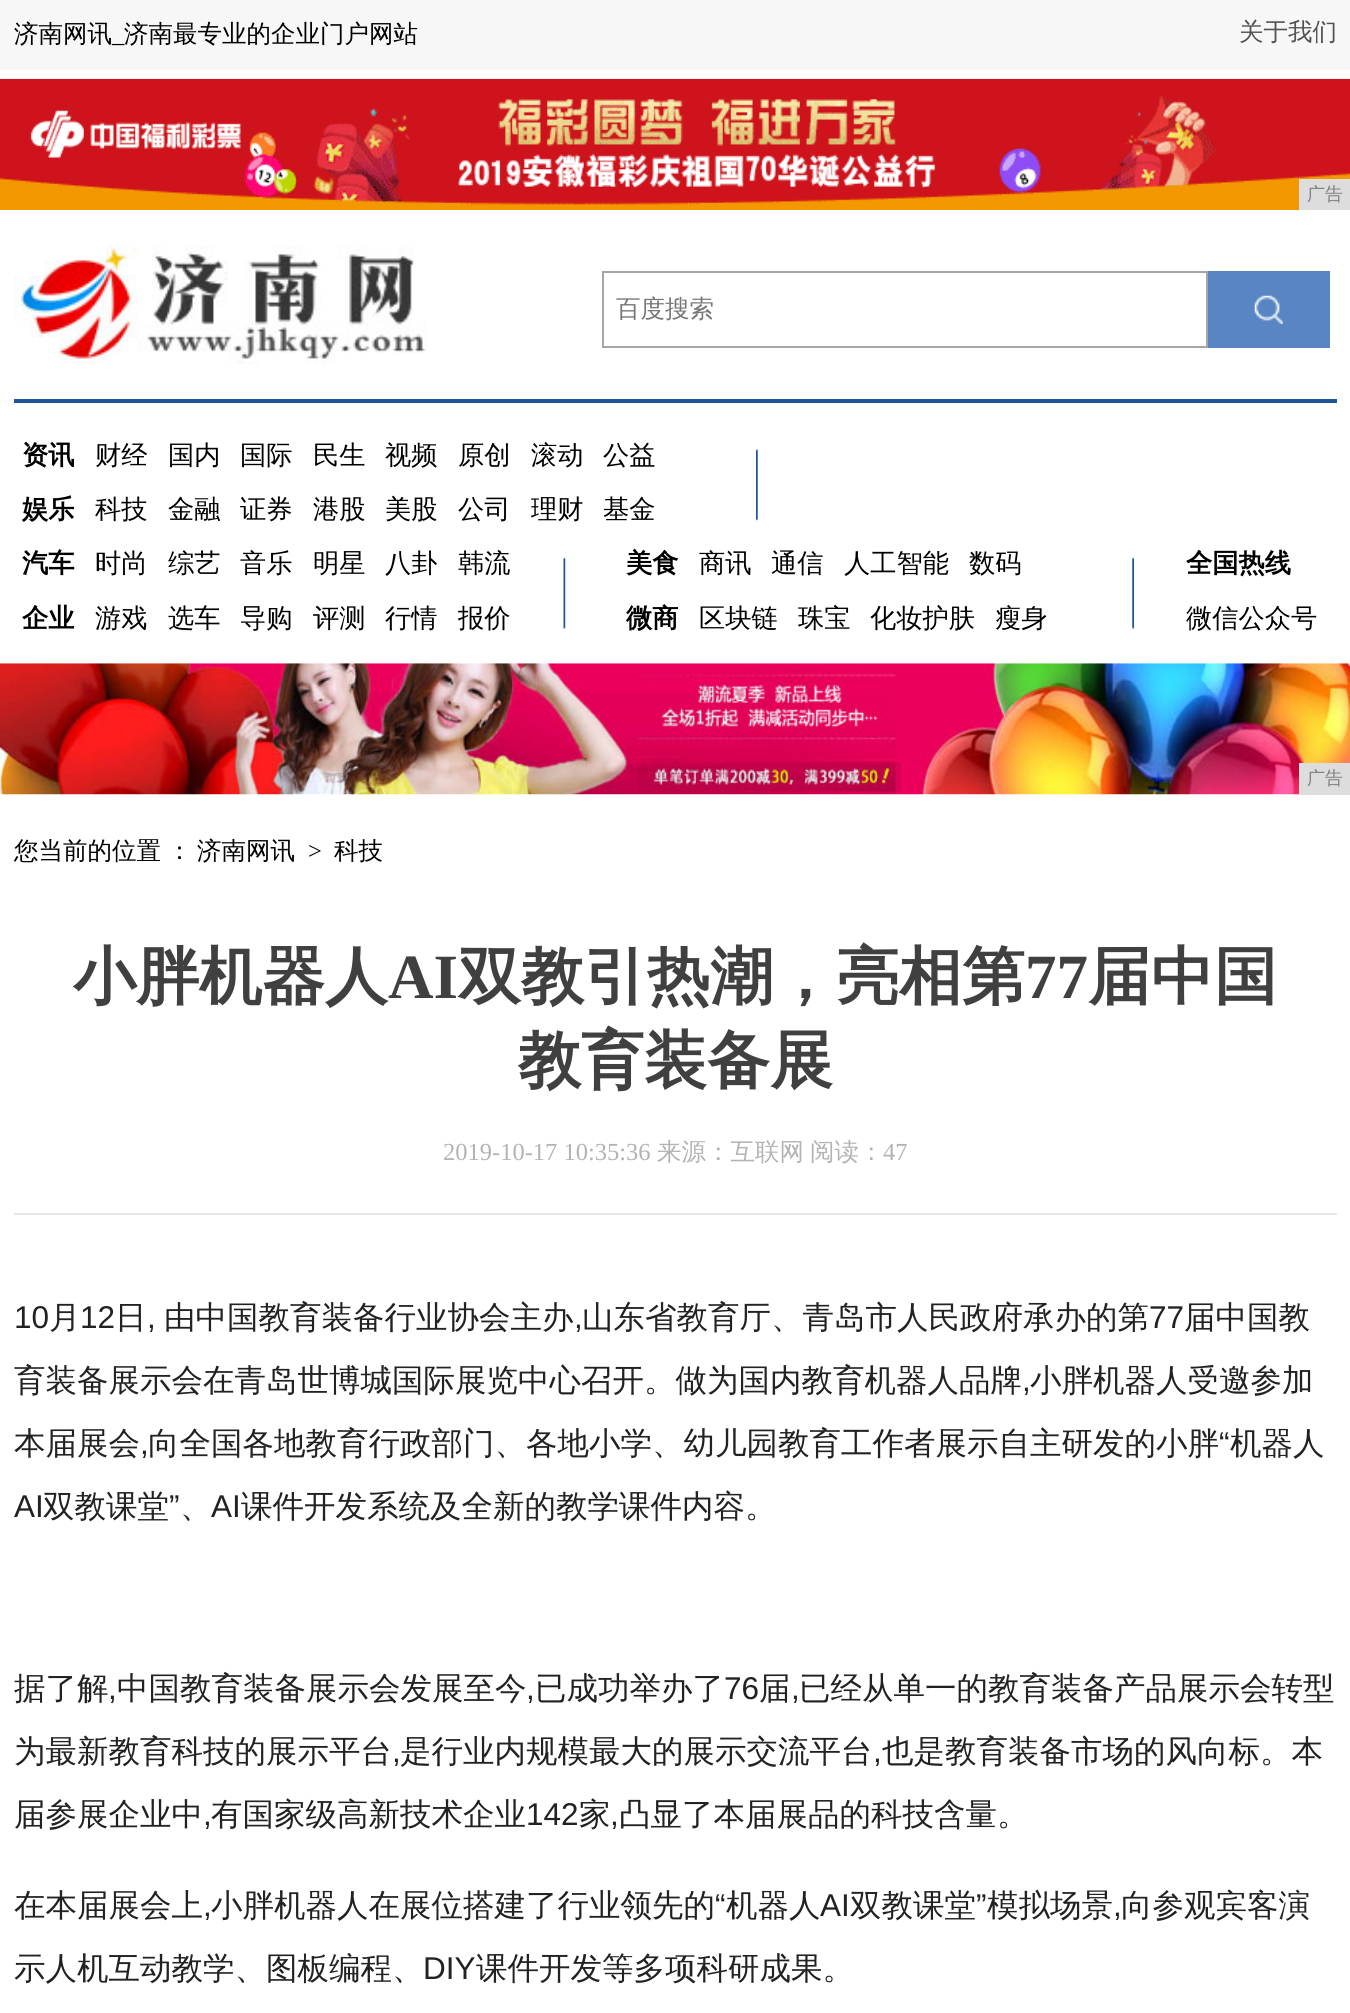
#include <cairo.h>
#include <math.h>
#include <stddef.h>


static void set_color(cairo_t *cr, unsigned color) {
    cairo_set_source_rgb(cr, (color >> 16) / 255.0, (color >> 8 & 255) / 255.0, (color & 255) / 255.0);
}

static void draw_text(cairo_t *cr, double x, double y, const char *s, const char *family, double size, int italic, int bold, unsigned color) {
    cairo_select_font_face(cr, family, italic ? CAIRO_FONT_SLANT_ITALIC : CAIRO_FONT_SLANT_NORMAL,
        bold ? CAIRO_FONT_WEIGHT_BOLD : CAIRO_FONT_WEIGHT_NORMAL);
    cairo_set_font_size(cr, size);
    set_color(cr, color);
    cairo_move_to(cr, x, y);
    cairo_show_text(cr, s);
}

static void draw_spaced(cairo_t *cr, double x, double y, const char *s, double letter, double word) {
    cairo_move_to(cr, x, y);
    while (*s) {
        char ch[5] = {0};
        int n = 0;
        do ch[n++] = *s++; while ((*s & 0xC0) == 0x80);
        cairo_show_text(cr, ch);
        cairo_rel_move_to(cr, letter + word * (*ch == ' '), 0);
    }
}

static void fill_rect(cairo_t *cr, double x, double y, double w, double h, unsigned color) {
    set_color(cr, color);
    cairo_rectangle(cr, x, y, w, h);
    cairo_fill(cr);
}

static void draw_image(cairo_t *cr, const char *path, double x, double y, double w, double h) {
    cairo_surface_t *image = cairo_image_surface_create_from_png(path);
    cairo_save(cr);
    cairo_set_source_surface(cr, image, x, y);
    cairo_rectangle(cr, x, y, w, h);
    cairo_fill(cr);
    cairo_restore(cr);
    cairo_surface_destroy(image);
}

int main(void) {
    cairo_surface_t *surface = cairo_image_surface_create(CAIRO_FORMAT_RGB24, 1350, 2013);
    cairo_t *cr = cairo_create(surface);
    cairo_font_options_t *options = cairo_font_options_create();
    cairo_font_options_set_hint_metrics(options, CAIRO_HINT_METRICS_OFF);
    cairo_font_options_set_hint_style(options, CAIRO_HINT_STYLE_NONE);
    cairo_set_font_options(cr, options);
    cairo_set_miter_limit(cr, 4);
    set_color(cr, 0xFFFFFF);
    cairo_paint(cr);
    fill_rect(cr, 0, 0, 1350, 70, 0xF7F7F7);
    draw_text(cr, 14, 42, "济南网讯", "WenQuanYi Zen Hei Medium", 24.5, 0, 0, 0x000000);
    draw_text(cr, 112, 42, "_", "Liberation Serif", 24.5, 0, 0, 0x000000);
    draw_text(cr, 124, 42, "济南最专业的企业门户网站", "WenQuanYi Zen Hei Medium", 24.5, 0, 0, 0x000000);
    draw_text(cr, 1239, 40, "关于我们", "WenQuanYi Zen Hei Medium", 24.5, 0, 0, 0x535151);
    draw_image(cr, "assets/img1.png", 0, 78, 1350, 132);
    fill_rect(cr, 1299, 179, 51, 31, 0xDDDDDD);
    draw_text(cr, 1307, 200, "广告", "WenQuanYi Zen Hei Medium", 18, 0, 0, 0x808080);
    fill_rect(cr, 14, 399, 1323, 4, 0x20559B);
    draw_image(cr, "assets/img2.png", 14, 245, 414, 119);
    cairo_rectangle(cr, 603, 272, 604, 75);
    set_color(cr, 0xA6A6A6);
    cairo_stroke(cr);
    draw_text(cr, 616, 317, "百度搜索", "WenQuanYi Zen Hei Medium", 24.5, 0, 0, 0x757575);
    fill_rect(cr, 1208, 271, 122, 77, 0x5786C3);
    draw_image(cr, "assets/img3.png", 1254, 295, 29, 29);
    draw_image(cr, "assets/img4.png", 756, 449, 2, 72);
    draw_text(cr, 22, 464, "资讯", "WenQuanYi Zen Hei", 26.25, 0, 1, 0x000000);
    draw_text(cr, 95, 464, "财经", "WenQuanYi Zen Hei Medium", 26.25, 0, 0, 0x000000);
    draw_text(cr, 168, 464, "国内", "WenQuanYi Zen Hei Medium", 26.25, 0, 0, 0x000000);
    draw_text(cr, 240, 464, "国际", "WenQuanYi Zen Hei Medium", 26.25, 0, 0, 0x000000);
    draw_text(cr, 313, 464, "民生", "WenQuanYi Zen Hei Medium", 26.25, 0, 0, 0x000000);
    draw_text(cr, 385, 464, "视频", "WenQuanYi Zen Hei Medium", 26.25, 0, 0, 0x000000);
    draw_text(cr, 458, 464, "原创", "WenQuanYi Zen Hei Medium", 26.25, 0, 0, 0x000000);
    draw_text(cr, 531, 464, "滚动", "WenQuanYi Zen Hei Medium", 26.25, 0, 0, 0x000000);
    draw_text(cr, 603, 464, "公益", "WenQuanYi Zen Hei Medium", 26.25, 0, 0, 0x000000);
    draw_text(cr, 22, 518, "娱乐", "WenQuanYi Zen Hei", 26.25, 0, 1, 0x000000);
    draw_text(cr, 95, 518, "科技", "WenQuanYi Zen Hei Medium", 26.25, 0, 0, 0x000000);
    draw_text(cr, 168, 518, "金融", "WenQuanYi Zen Hei Medium", 26.25, 0, 0, 0x000000);
    draw_text(cr, 240, 518, "证券", "WenQuanYi Zen Hei Medium", 26.25, 0, 0, 0x000000);
    draw_text(cr, 313, 518, "港股", "WenQuanYi Zen Hei Medium", 26.25, 0, 0, 0x000000);
    draw_text(cr, 385, 518, "美股", "WenQuanYi Zen Hei Medium", 26.25, 0, 0, 0x000000);
    draw_text(cr, 458, 518, "公司", "WenQuanYi Zen Hei Medium", 26.25, 0, 0, 0x000000);
    draw_text(cr, 531, 518, "理财", "WenQuanYi Zen Hei Medium", 26.25, 0, 0, 0x000000);
    draw_text(cr, 603, 518, "基金", "WenQuanYi Zen Hei Medium", 26.25, 0, 0, 0x000000);
    draw_image(cr, "assets/img5.png", 563, 557, 3, 72);
    draw_text(cr, 22, 572, "汽车", "WenQuanYi Zen Hei", 26.25, 0, 1, 0x000000);
    draw_text(cr, 95, 572, "时尚", "WenQuanYi Zen Hei Medium", 26.25, 0, 0, 0x000000);
    draw_text(cr, 168, 572, "综艺", "WenQuanYi Zen Hei Medium", 26.25, 0, 0, 0x000000);
    draw_text(cr, 240, 572, "音乐", "WenQuanYi Zen Hei Medium", 26.25, 0, 0, 0x000000);
    draw_text(cr, 313, 572, "明星", "WenQuanYi Zen Hei Medium", 26.25, 0, 0, 0x000000);
    draw_text(cr, 385, 572, "八卦", "WenQuanYi Zen Hei Medium", 26.25, 0, 0, 0x000000);
    draw_text(cr, 458, 572, "韩流", "WenQuanYi Zen Hei Medium", 26.25, 0, 0, 0x000000);
    draw_text(cr, 22, 627, "企业", "WenQuanYi Zen Hei", 26.25, 0, 1, 0x000000);
    draw_text(cr, 95, 627, "游戏", "WenQuanYi Zen Hei Medium", 26.25, 0, 0, 0x000000);
    draw_text(cr, 168, 627, "选车", "WenQuanYi Zen Hei Medium", 26.25, 0, 0, 0x000000);
    draw_text(cr, 240, 627, "导购", "WenQuanYi Zen Hei Medium", 26.25, 0, 0, 0x000000);
    draw_text(cr, 313, 627, "评测", "WenQuanYi Zen Hei Medium", 26.25, 0, 0, 0x000000);
    draw_text(cr, 385, 627, "行情", "WenQuanYi Zen Hei Medium", 26.25, 0, 0, 0x000000);
    draw_text(cr, 458, 627, "报价", "WenQuanYi Zen Hei Medium", 26.25, 0, 0, 0x000000);
    draw_image(cr, "assets/img6.png", 1132, 557, 2, 72);
    draw_text(cr, 626, 572, "美食", "WenQuanYi Zen Hei", 26.25, 0, 1, 0x000000);
    draw_text(cr, 699, 572, "商讯", "WenQuanYi Zen Hei Medium", 26.25, 0, 0, 0x000000);
    draw_text(cr, 771, 572, "通信", "WenQuanYi Zen Hei Medium", 26.25, 0, 0, 0x000000);
    draw_text(cr, 844, 572, "人工智能", "WenQuanYi Zen Hei Medium", 26.25, 0, 0, 0x000000);
    draw_text(cr, 969, 572, "数码", "WenQuanYi Zen Hei Medium", 26.25, 0, 0, 0x000000);
    draw_text(cr, 626, 627, "微商", "WenQuanYi Zen Hei", 26.25, 0, 1, 0x000000);
    draw_text(cr, 699, 627, "区块链", "WenQuanYi Zen Hei Medium", 26.25, 0, 0, 0x000000);
    draw_text(cr, 798, 627, "珠宝", "WenQuanYi Zen Hei Medium", 26.25, 0, 0, 0x000000);
    draw_text(cr, 870, 627, "化妆护肤", "WenQuanYi Zen Hei Medium", 26.25, 0, 0, 0x000000);
    draw_text(cr, 995, 627, "瘦身", "WenQuanYi Zen Hei Medium", 26.25, 0, 0, 0x000000);
    draw_text(cr, 1186, 572, "全国热线", "WenQuanYi Zen Hei", 26.25, 0, 1, 0x000000);
    draw_text(cr, 1186, 627, "微信公众号", "WenQuanYi Zen Hei Medium", 26.25, 0, 0, 0x000000);
    draw_image(cr, "assets/img7.png", 0, 663, 1350, 132);
    fill_rect(cr, 1299, 763, 51, 32, 0xDDDDDD);
    draw_text(cr, 1307, 784, "广告", "WenQuanYi Zen Hei Medium", 18, 0, 0, 0x808080);
    cairo_set_font_size(cr, 24.5);
    set_color(cr, 0x000000);
    draw_spaced(cr, 14, 859, "您当前的位置 ：", 0, -1);
    draw_text(cr, 197, 859, "济南网讯", "WenQuanYi Zen Hei Medium", 24.5, 0, 0, 0x000000);
    draw_text(cr, 308, 859, ">", "Liberation Serif", 24.5, 0, 0, 0x000000);
    draw_text(cr, 334, 859, "科技", "WenQuanYi Zen Hei Medium", 24.5, 0, 0, 0x000000);
    draw_text(cr, 73, 998, "小胖机器人", "WenQuanYi Zen Hei", 63, 0, 1, 0x404040);
    draw_text(cr, 388, 998, "AI", "Liberation Serif", 63, 0, 1, 0x404040);
    draw_text(cr, 458, 998, "双教引热潮，亮相第", "WenQuanYi Zen Hei", 63, 0, 1, 0x404040);
    draw_text(cr, 1025, 998, "77", "Liberation Serif", 63, 0, 1, 0x404040);
    draw_text(cr, 1088, 998, "届中国", "WenQuanYi Zen Hei", 63, 0, 1, 0x404040);
    draw_text(cr, 518, 1082, "教育装备展", "WenQuanYi Zen Hei", 63, 0, 1, 0x404040);
    draw_text(cr, 443, 1160, "2019-10-17 10:35:36", "Liberation Serif", 24.5, 0, 0, 0xB3B3B3);
    draw_text(cr, 657, 1160, "来源：互联网", "WenQuanYi Zen Hei Medium", 24.5, 0, 0, 0xB3B3B3);
    draw_text(cr, 810, 1160, "阅读：", "WenQuanYi Zen Hei Medium", 24.5, 0, 0, 0xB3B3B3);
    draw_text(cr, 883, 1160, "47", "Liberation Serif", 24.5, 0, 0, 0xB3B3B3);
    fill_rect(cr, 14, 1213, 1323, 2, 0xE6E6E6);
    draw_text(cr, 14, 1328, "10", "Liberation Sans", 31.5, 0, 0, 0x222222);
    draw_text(cr, 49, 1328, "月", "WenQuanYi Zen Hei Medium", 31.5, 0, 0, 0x222222);
    draw_text(cr, 80, 1328, "12", "Liberation Sans", 31.5, 0, 0, 0x222222);
    draw_text(cr, 115, 1328, "日", "WenQuanYi Zen Hei Medium", 31.5, 0, 0, 0x222222);
    draw_text(cr, 147, 1328, ",", "Liberation Sans", 31.5, 0, 0, 0x222222);
    draw_text(cr, 164, 1328, "由中国教育装备行业协会主办", "WenQuanYi Zen Hei Medium", 31.5, 0, 0, 0x222222);
    draw_text(cr, 574, 1328, ",", "Liberation Sans", 31.5, 0, 0, 0x222222);
    draw_text(cr, 582, 1328, "山东省教育厅、青岛市人民政府承办的第", "WenQuanYi Zen Hei Medium", 31.5, 0, 0, 0x222222);
    draw_text(cr, 1149, 1328, "77", "Liberation Sans", 31.5, 0, 0, 0x222222);
    draw_text(cr, 1184, 1328, "届中国教", "WenQuanYi Zen Hei Medium", 31.5, 0, 0, 0x222222);
    draw_text(cr, 14, 1391, "育装备展示会在青岛世博城国际展览中心召开。做为国内教育机器人品牌", "WenQuanYi Zen Hei Medium", 31.5, 0, 0, 0x222222);
    draw_text(cr, 1022, 1391, ",", "Liberation Sans", 31.5, 0, 0, 0x222222);
    draw_text(cr, 1030, 1391, "小胖机器人受邀参加", "WenQuanYi Zen Hei Medium", 31.5, 0, 0, 0x222222);
    draw_text(cr, 14, 1454, "本届展会", "WenQuanYi Zen Hei Medium", 31.5, 0, 0, 0x222222);
    draw_text(cr, 148, 1454, "向全国各地教育行政部门、各地小学、幼儿园教育工作者展示自主研发的小胖", "WenQuanYi Zen Hei Medium", 31.5, 0, 0, 0x222222);
    draw_text(cr, 1219, 1454, "“", "Liberation Sans", 31.5, 0, 0, 0x222222);
    draw_text(cr, 1230, 1454, "机器人", "WenQuanYi Zen Hei Medium", 31.5, 0, 0, 0x222222);
    draw_text(cr, 140, 1454, ",", "Liberation Sans", 31.5, 0, 0, 0x222222);
    draw_text(cr, 14, 1517, "AI", "Liberation Sans", 31.5, 0, 0, 0x222222);
    draw_text(cr, 43, 1517, "双教课堂", "WenQuanYi Zen Hei Medium", 31.5, 0, 0, 0x222222);
    draw_text(cr, 169, 1517, "”", "Liberation Sans", 31.5, 0, 0, 0x222222);
    draw_text(cr, 180, 1517, "、", "WenQuanYi Zen Hei Medium", 31.5, 0, 0, 0x222222);
    draw_text(cr, 211, 1517, "AI", "Liberation Sans", 31.5, 0, 0, 0x222222);
    draw_text(cr, 241, 1517, "课件开发系统及全新的教学课件内容。", "WenQuanYi Zen Hei Medium", 31.5, 0, 0, 0x222222);
    draw_text(cr, 14, 1699, "据了解", "WenQuanYi Zen Hei Medium", 31.5, 0, 0, 0x222222);
    draw_text(cr, 108, 1699, ",", "Liberation Sans", 31.5, 0, 0, 0x222222);
    draw_text(cr, 117, 1699, "中国教育装备展示会发展至今", "WenQuanYi Zen Hei Medium", 31.5, 0, 0, 0x222222);
    draw_text(cr, 526, 1699, ",", "Liberation Sans", 31.5, 0, 0, 0x222222);
    draw_text(cr, 535, 1699, "已成功举办了", "WenQuanYi Zen Hei Medium", 31.5, 0, 0, 0x222222);
    draw_text(cr, 724, 1699, "76", "Liberation Sans", 31.5, 0, 0, 0x222222);
    draw_text(cr, 759, 1699, "届", "WenQuanYi Zen Hei Medium", 31.5, 0, 0, 0x222222);
    draw_text(cr, 791, 1699, ",", "Liberation Sans", 31.5, 0, 0, 0x222222);
    draw_text(cr, 799, 1699, "已经从单一的教育装备产品展示会转型", "WenQuanYi Zen Hei Medium", 31.5, 0, 0, 0x222222);
    draw_text(cr, 14, 1762, "为最新教育科技的展示平台", "WenQuanYi Zen Hei Medium", 31.5, 0, 0, 0x222222);
    draw_text(cr, 392, 1762, ",", "Liberation Sans", 31.5, 0, 0, 0x222222);
    draw_text(cr, 400, 1762, "是行业内规模最大的展示交流平台", "WenQuanYi Zen Hei Medium", 31.5, 0, 0, 0x222222);
    draw_text(cr, 873, 1762, ",", "Liberation Sans", 31.5, 0, 0, 0x222222);
    draw_text(cr, 882, 1762, "也是教育装备市场的风向标。本", "WenQuanYi Zen Hei Medium", 31.5, 0, 0, 0x222222);
    draw_text(cr, 14, 1825, "届参展企业中", "WenQuanYi Zen Hei Medium", 31.5, 0, 0, 0x222222);
    draw_text(cr, 203, 1825, ",", "Liberation Sans", 31.5, 0, 0, 0x222222);
    draw_text(cr, 211, 1825, "有国家级高新技术企业", "WenQuanYi Zen Hei Medium", 31.5, 0, 0, 0x222222);
    draw_text(cr, 526, 1825, "142", "Liberation Sans", 31.5, 0, 0, 0x222222);
    draw_text(cr, 579, 1825, "家", "WenQuanYi Zen Hei Medium", 31.5, 0, 0, 0x222222);
    draw_text(cr, 610, 1825, ",", "Liberation Sans", 31.5, 0, 0, 0x222222);
    draw_text(cr, 619, 1825, "凸显了本届展品的科技含量。", "WenQuanYi Zen Hei Medium", 31.5, 0, 0, 0x222222);
    draw_text(cr, 14, 1916, "在本届展会上", "WenQuanYi Zen Hei Medium", 31.5, 0, 0, 0x222222);
    draw_text(cr, 211, 1916, "小胖机器人在展位搭建了行业领先的", "WenQuanYi Zen Hei Medium", 31.5, 0, 0, 0x222222);
    draw_text(cr, 715, 1916, "“", "Liberation Sans", 31.5, 0, 0, 0x222222);
    draw_text(cr, 726, 1916, "机器人", "WenQuanYi Zen Hei Medium", 31.5, 0, 0, 0x222222);
    draw_text(cr, 820, 1916, "AI", "Liberation Sans", 31.5, 0, 0, 0x222222);
    draw_text(cr, 850, 1916, "双教课堂", "WenQuanYi Zen Hei Medium", 31.5, 0, 0, 0x222222);
    draw_text(cr, 976, 1916, "”", "Liberation Sans", 31.5, 0, 0, 0x222222);
    draw_text(cr, 987, 1916, "模拟场景", "WenQuanYi Zen Hei Medium", 31.5, 0, 0, 0x222222);
    draw_text(cr, 1121, 1916, "向参观宾客演", "WenQuanYi Zen Hei Medium", 31.5, 0, 0, 0x222222);
    draw_text(cr, 203, 1916, ",", "Liberation Sans", 31.5, 0, 0, 0x222222);
    draw_text(cr, 1113, 1916, ",", "Liberation Sans", 31.5, 0, 0, 0x222222);
    draw_text(cr, 14, 1979, "示人机互动教学、图板编程、", "WenQuanYi Zen Hei Medium", 31.5, 0, 0, 0x222222);
    draw_text(cr, 423, 1979, "DIY", "Liberation Sans", 31.5, 0, 0, 0x222222);
    draw_text(cr, 476, 1979, "课件开发等多项科研成果。", "WenQuanYi Zen Hei Medium", 31.5, 0, 0, 0x222222);
    cairo_surface_write_to_png(surface, "output.png");
    cairo_font_options_destroy(options);
    cairo_destroy(cr);
    cairo_surface_destroy(surface);
    return 0;
}
